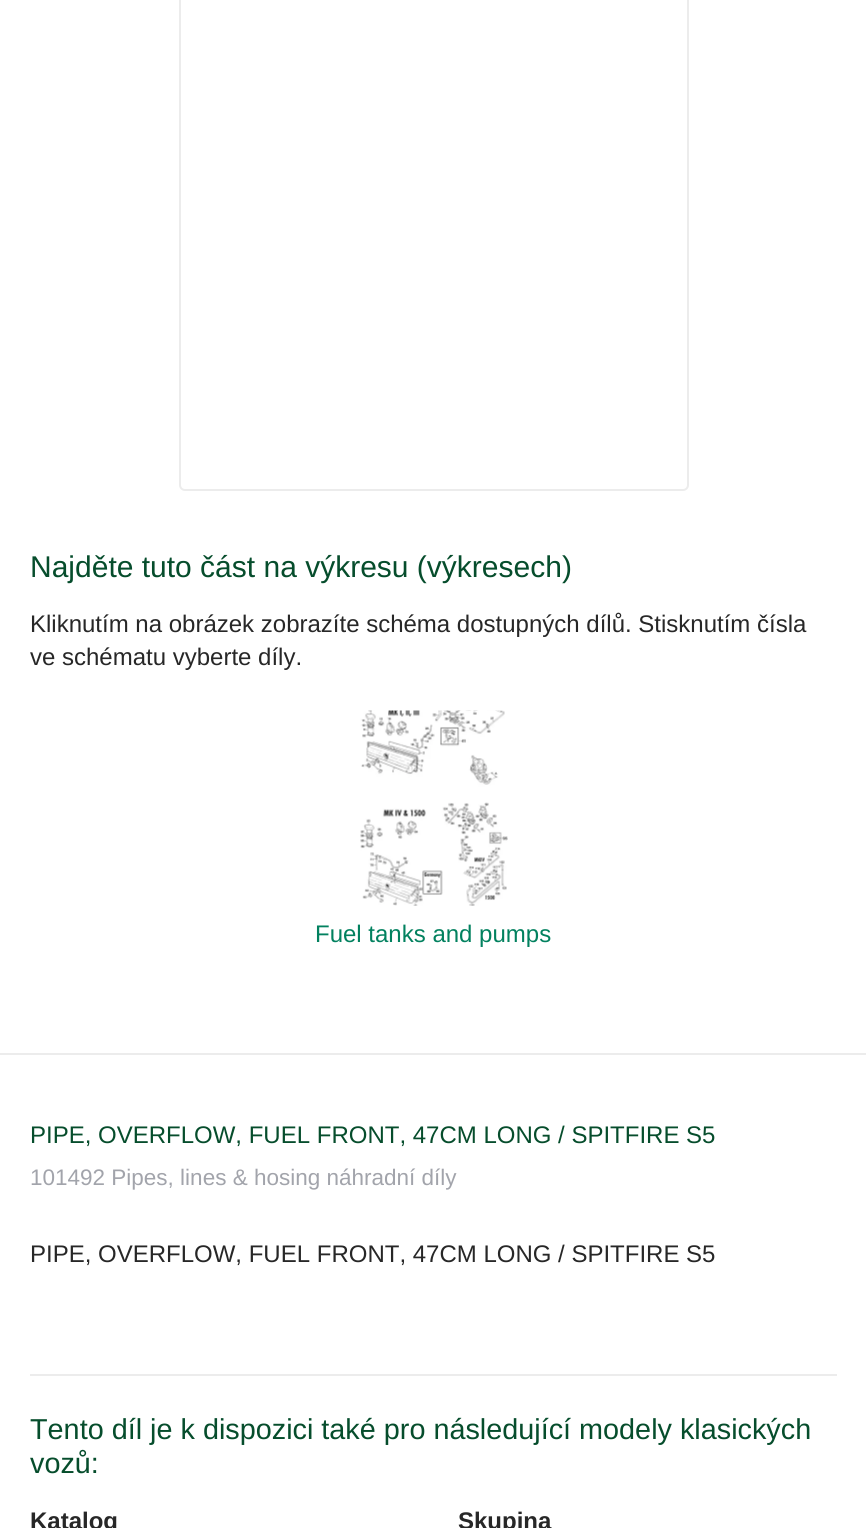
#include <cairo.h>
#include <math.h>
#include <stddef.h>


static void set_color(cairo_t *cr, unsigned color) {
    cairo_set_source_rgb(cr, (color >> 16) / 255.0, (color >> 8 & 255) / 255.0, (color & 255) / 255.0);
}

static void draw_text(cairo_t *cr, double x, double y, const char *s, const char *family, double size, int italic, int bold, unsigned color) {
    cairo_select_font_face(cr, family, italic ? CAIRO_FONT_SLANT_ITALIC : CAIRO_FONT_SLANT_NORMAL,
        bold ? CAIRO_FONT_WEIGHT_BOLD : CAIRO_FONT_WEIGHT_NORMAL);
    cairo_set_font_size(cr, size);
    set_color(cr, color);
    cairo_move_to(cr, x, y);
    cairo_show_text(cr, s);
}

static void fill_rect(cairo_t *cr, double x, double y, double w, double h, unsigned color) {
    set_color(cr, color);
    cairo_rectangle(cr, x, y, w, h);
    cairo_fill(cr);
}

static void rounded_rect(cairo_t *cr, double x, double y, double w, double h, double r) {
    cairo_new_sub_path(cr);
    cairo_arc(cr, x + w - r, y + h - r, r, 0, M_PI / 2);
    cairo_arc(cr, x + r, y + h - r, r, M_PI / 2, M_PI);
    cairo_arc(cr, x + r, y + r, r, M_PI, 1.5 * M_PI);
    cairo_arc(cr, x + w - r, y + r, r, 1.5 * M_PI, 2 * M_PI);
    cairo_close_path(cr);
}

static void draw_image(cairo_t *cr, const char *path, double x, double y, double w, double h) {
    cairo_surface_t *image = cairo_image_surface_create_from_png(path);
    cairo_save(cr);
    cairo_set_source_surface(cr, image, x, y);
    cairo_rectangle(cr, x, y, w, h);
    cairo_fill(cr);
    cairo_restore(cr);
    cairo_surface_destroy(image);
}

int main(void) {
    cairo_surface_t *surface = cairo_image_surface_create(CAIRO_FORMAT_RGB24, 866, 1528);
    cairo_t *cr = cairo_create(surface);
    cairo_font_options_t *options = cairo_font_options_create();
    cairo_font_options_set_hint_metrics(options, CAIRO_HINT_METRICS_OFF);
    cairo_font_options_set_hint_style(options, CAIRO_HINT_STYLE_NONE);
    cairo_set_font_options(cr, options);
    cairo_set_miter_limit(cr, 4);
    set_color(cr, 0xFFFFFF);
    cairo_paint(cr);
    rounded_rect(cr, 180, -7, 508, 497, 5);
    set_color(cr, 0xECECEC);
    cairo_stroke(cr);
    draw_text(cr, 30, 577, "Najděte tuto část na výkresu (výkresech)", "Liberation Sans", 30, 0, 0, 0x064D2C);
    draw_text(cr, 30, 632, "Kliknutím na obrázek zobrazíte schéma dostupných dílů. Stisknutím čísla", "Liberation Sans", 24, 0, 0, 0x272727);
    draw_text(cr, 30, 665, "ve schématu vyberte díly.", "Liberation Sans", 24, 0, 0, 0x272727);
    draw_image(cr, "assets/img1.png", 360, 710, 148, 196);
    draw_text(cr, 315, 942, "Fuel tanks and pumps", "Liberation Sans", 24, 0, 0, 0x02815F);
    fill_rect(cr, 0, 1053, 866, 2, 0xECECEC);
    draw_text(cr, 30, 1143, "PIPE, OVERFLOW, FUEL FRONT, 47CM LONG / SPITFIRE S5", "Liberation Sans", 24, 0, 0, 0x064D2C);
    draw_text(cr, 30, 1185, "101492 Pipes, lines & hosing náhradní díly", "Liberation Sans", 22.5, 0, 0, 0xA2A4AB);
    draw_text(cr, 30, 1262, "PIPE, OVERFLOW, FUEL FRONT, 47CM LONG / SPITFIRE S5", "Liberation Sans", 24, 0, 0, 0x272727);
    fill_rect(cr, 30, 1374, 807, 2, 0xECECEC);
    draw_text(cr, 30, 1439, "Tento díl je k dispozici také pro následující modely klasických", "Liberation Sans", 28.8, 0, 0, 0x064D2C);
    draw_text(cr, 30, 1473, "vozů:", "Liberation Sans", 28.8, 0, 0, 0x064D2C);
    draw_text(cr, 30, 1529, "Katalog", "Liberation Sans", 24, 0, 1, 0x272727);
    draw_text(cr, 458, 1529, "Skupina", "Liberation Sans", 24, 0, 1, 0x272727);
    cairo_surface_write_to_png(surface, "output.png");
    cairo_font_options_destroy(options);
    cairo_destroy(cr);
    cairo_surface_destroy(surface);
    return 0;
}
